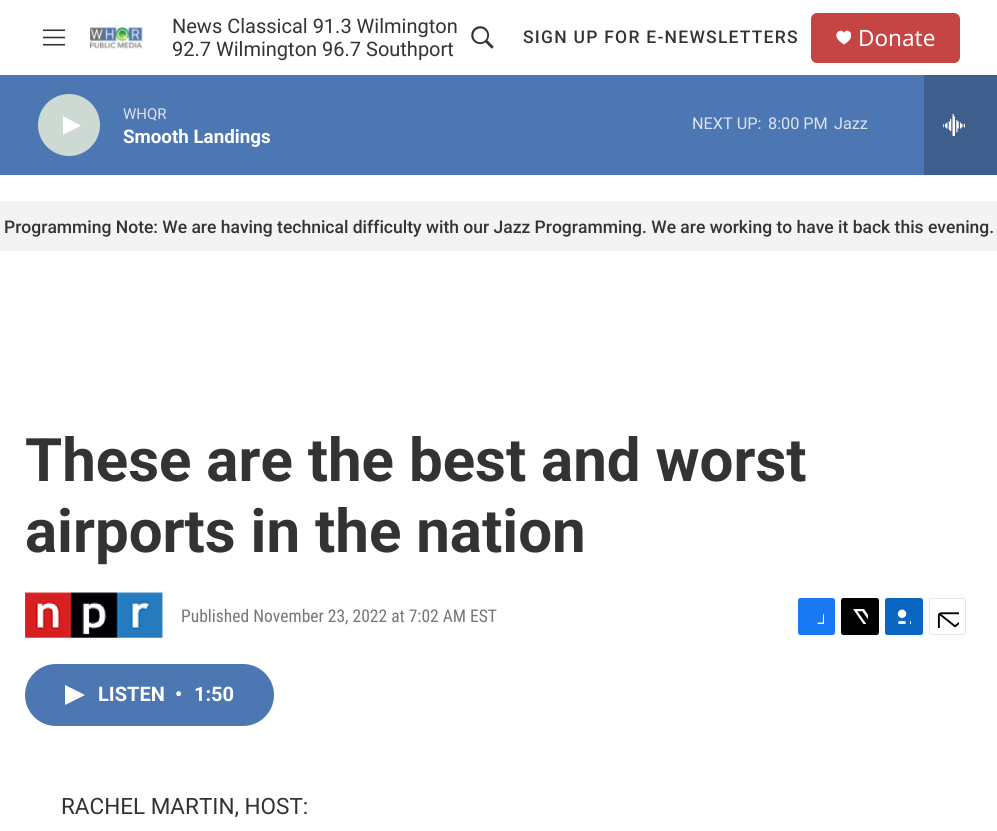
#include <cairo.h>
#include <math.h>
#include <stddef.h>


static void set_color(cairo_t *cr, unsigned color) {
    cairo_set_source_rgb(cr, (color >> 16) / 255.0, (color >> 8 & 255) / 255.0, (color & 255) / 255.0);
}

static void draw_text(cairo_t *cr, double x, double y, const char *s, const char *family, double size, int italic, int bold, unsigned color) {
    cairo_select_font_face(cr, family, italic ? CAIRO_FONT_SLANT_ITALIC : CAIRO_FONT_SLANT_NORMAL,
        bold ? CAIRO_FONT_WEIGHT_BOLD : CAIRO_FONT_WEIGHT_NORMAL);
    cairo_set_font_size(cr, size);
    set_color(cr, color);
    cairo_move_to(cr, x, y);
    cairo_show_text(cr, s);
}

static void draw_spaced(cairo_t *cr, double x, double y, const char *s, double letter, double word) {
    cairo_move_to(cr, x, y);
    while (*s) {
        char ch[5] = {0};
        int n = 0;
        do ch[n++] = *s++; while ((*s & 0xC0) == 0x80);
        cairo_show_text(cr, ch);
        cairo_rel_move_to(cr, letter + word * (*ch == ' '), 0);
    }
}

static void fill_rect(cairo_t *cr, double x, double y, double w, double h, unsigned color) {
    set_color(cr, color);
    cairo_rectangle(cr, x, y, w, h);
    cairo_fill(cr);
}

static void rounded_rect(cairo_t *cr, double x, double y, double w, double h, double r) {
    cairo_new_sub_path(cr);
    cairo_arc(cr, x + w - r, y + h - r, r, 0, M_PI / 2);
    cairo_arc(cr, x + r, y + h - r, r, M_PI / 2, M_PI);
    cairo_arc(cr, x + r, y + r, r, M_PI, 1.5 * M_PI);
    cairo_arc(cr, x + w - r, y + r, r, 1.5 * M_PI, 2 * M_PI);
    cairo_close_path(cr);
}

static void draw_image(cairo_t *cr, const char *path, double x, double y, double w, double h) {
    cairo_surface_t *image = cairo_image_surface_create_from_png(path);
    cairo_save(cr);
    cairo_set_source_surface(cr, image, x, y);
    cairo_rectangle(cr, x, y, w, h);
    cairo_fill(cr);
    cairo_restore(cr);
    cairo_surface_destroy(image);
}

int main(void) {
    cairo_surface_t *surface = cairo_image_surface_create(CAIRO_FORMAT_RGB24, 997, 831);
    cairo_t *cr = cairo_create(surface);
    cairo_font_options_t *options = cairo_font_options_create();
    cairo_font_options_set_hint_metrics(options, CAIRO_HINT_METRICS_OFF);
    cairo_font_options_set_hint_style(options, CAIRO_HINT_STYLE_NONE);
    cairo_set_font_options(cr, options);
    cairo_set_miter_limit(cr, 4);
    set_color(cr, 0xFFFFFF);
    cairo_paint(cr);
    fill_rect(cr, 0, 175, 997, 1, 0xF5F5F5);
    draw_image(cr, "assets/img1.png", 43, 29, 22, 17);
    draw_image(cr, "assets/img2.png", 90, 25, 54, 24);
    draw_text(cr, 172, 33, "News Classical 91.3 Wilmington", "Roboto", 20, 0, 0, 0x333333);
    draw_text(cr, 172, 56, "92.7 Wilmington 96.7 Southport", "Roboto", 20, 0, 0, 0x333333);
    draw_image(cr, "assets/img3.png", 471, 26, 23, 23);
    cairo_select_font_face(cr, "Roboto Medium", CAIRO_FONT_SLANT_NORMAL, CAIRO_FONT_WEIGHT_NORMAL);
    cairo_set_font_size(cr, 17.5);
    draw_spaced(cr, 523, 43, "SIGN UP FOR E-NEWSLETTERS", 1.25, 0);
    set_color(cr, 0xC54444);
    rounded_rect(cr, 811, 13, 149, 50, 6);
    cairo_fill(cr);
    cairo_save(cr);
    cairo_rectangle(cr, 836, 30, 15, 15);
    cairo_clip(cr);
    set_color(cr, 0xFFFBFB);
    cairo_new_path(cr);
    cairo_move_to(cr, 844, 33);
    cairo_curve_to(cr, 841.5, 26.5, 828, 35, 844, 44.5);
    cairo_curve_to(cr, 859.5, 35, 846, 26.5, 844, 33);
    cairo_close_path(cr);
    cairo_fill(cr);
    cairo_restore(cr);
    draw_text(cr, 858, 46, "Donate", "Noto Sans", 22.5, 0, 0, 0xFFFFFF);
    fill_rect(cr, 0, 75, 924, 100, 0x4D77B2);
    set_color(cr, 0xCDD9D3);
    cairo_new_path(cr);
    cairo_arc(cr, 69, 125, 31, 0, 2 * M_PI);
    cairo_fill(cr);
    cairo_save(cr);
    cairo_rectangle(cr, 63, 114, 18, 24);
    cairo_clip(cr);
    set_color(cr, 0xFFFFFF);
    cairo_new_path(cr);
    cairo_move_to(cr, 62.5, 116);
    cairo_line_to(cr, 81, 125.5);
    cairo_line_to(cr, 62.5, 135);
    cairo_close_path(cr);
    cairo_fill(cr);
    cairo_restore(cr);
    draw_text(cr, 123, 119, "WHQR", "Roboto", 15, 0, 0, 0xDBE4F0);
    draw_text(cr, 123, 143, "Smooth Landings", "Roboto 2", 18.75, 0, 1, 0xFFFFFF);
    draw_text(cr, 692, 129, "NEXT UP:", "Roboto", 16.25, 0, 0, 0xDBE4F0);
    draw_text(cr, 768, 129, "8:00 PM", "Roboto", 16.25, 0, 0, 0xDBE4F0);
    draw_text(cr, 834, 129, "Jazz", "Roboto", 16.25, 0, 0, 0xDBE4F0);
    fill_rect(cr, 924, 75, 73, 100, 0x3E5F8E);
    draw_image(cr, "assets/img4.png", 943, 114, 22, 22);
    fill_rect(cr, 0, 201, 997, 50, 0xF3F3F3);
    draw_text(cr, 4, 233, "Programming Note: We are having technical difficulty with our Jazz Programming. We are working to have it back this evening.", "Roboto Medium", 17.5, 0, 0, 0x333333);
    draw_text(cr, 25, 481, "These are the best and worst", "Roboto", 60, 0, 1, 0x333333);
    draw_text(cr, 25, 552, "airports in the nation", "Roboto", 60, 0, 1, 0x333333);
    draw_image(cr, "assets/img5.png", 25, 592, 138, 47);
    draw_text(cr, 181, 622, "Published November 23, 2022 at 7:02 AM EST", "Roboto Condensed", 17.5, 0, 0, 0x767676);
    set_color(cr, 0x1778F2);
    rounded_rect(cr, 798, 598, 37, 37, 2.5);
    cairo_fill(cr);
    draw_image(cr, "assets/img6.png", 817, 613, 7, 11);
    set_color(cr, 0x000000);
    rounded_rect(cr, 841, 598, 38, 37, 2.5);
    cairo_fill(cr);
    draw_image(cr, "assets/img7.png", 853, 609, 15, 15);
    set_color(cr, 0x0A66C1);
    rounded_rect(cr, 885, 598, 38, 37, 2.5);
    cairo_fill(cr);
    draw_image(cr, "assets/img8.png", 897, 609, 14, 15);
    rounded_rect(cr, 929.5, 598.5, 36, 36, 2);
    set_color(cr, 0xE6E6E6);
    cairo_set_line_width(cr, 1);
    cairo_stroke(cr);
    draw_image(cr, "assets/img9.png", 937, 612, 22, 16);
    set_color(cr, 0x4D77B2);
    rounded_rect(cr, 25, 664, 249, 62, 31);
    cairo_fill(cr);
    set_color(cr, 0xFFFFFF);
    cairo_new_path(cr);
    cairo_move_to(cr, 65, 685);
    cairo_line_to(cr, 85, 695);
    cairo_line_to(cr, 65, 705);
    cairo_close_path(cr);
    cairo_fill(cr);
    draw_text(cr, 98, 701, "LISTEN", "Roboto 2", 20, 0, 1, 0xFFFFFF);
    draw_text(cr, 175, 701, "•", "Roboto 2", 20, 0, 1, 0xFFFFFF);
    draw_text(cr, 194, 701, "1:50", "Roboto 2", 20, 0, 1, 0xFFFFFF);
    draw_text(cr, 61, 814, "RACHEL MARTIN, HOST:", "Roboto", 22.5, 0, 0, 0x333333);
    cairo_surface_write_to_png(surface, "output.png");
    cairo_font_options_destroy(options);
    cairo_destroy(cr);
    cairo_surface_destroy(surface);
    return 0;
}
